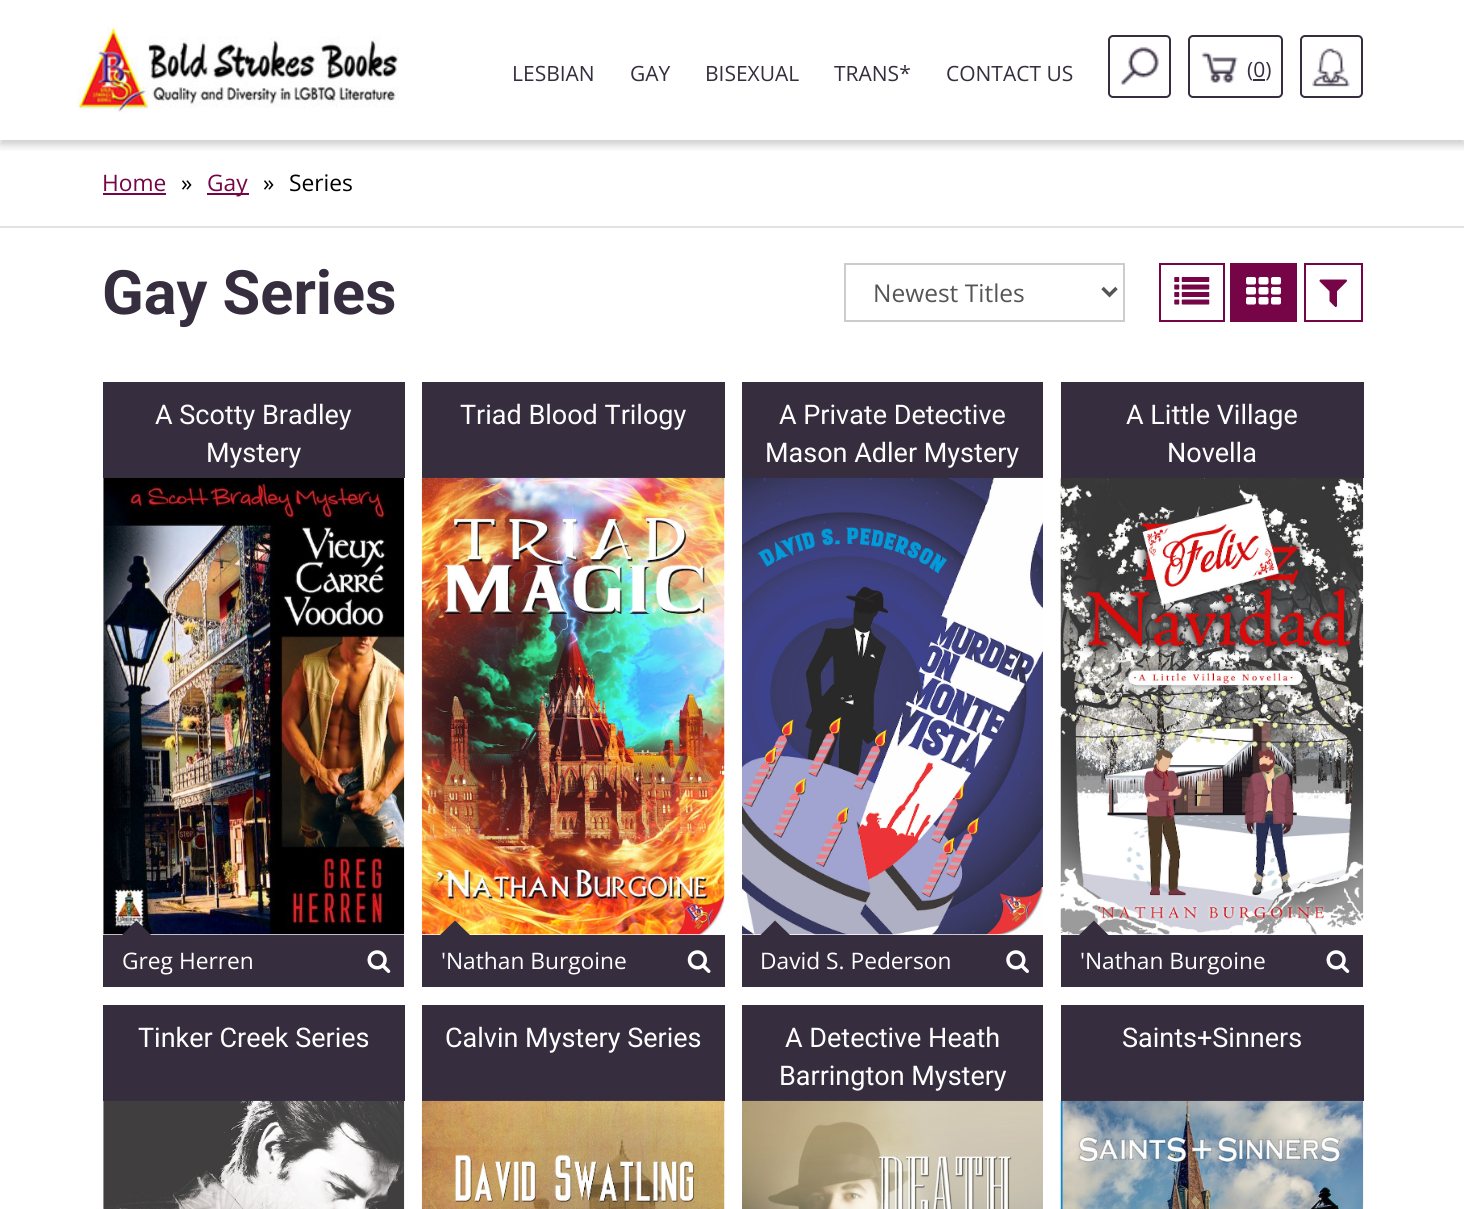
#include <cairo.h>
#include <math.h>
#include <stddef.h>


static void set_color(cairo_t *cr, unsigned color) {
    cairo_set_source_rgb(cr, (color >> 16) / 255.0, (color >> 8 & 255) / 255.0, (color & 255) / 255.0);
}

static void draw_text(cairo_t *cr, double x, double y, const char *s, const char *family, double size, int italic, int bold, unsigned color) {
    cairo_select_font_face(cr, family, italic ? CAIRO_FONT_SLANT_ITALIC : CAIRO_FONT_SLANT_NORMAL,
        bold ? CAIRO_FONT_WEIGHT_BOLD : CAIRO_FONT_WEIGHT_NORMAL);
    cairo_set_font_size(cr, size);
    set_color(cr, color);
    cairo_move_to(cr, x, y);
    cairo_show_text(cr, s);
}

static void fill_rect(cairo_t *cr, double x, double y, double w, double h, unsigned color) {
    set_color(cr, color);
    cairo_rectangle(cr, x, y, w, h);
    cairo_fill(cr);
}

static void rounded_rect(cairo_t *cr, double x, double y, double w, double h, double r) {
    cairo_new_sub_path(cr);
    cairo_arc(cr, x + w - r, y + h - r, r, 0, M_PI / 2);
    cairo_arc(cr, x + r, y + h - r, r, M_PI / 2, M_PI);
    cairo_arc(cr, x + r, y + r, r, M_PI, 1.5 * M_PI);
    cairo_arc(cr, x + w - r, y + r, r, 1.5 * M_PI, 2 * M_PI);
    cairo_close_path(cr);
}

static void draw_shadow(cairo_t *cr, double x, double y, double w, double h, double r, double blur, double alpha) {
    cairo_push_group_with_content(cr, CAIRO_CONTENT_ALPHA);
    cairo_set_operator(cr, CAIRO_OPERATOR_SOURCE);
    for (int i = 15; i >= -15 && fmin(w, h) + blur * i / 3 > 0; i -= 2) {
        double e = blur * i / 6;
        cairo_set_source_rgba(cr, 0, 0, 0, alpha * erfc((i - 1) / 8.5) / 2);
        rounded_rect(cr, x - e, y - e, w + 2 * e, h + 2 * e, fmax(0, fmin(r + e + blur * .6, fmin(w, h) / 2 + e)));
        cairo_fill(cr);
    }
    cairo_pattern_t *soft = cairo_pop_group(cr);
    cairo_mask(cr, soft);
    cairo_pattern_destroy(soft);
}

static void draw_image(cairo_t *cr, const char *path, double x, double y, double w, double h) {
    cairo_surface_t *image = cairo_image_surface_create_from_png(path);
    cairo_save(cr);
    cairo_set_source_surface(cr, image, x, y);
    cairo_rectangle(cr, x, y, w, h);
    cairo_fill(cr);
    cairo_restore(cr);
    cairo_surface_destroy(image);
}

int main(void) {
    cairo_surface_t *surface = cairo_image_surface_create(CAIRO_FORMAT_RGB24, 1464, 1209);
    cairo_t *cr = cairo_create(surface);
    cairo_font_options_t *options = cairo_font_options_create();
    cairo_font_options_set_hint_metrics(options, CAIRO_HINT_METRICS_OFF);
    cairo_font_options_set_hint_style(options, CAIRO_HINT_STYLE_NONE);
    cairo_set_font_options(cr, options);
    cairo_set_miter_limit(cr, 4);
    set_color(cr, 0xFFFFFF);
    cairo_paint(cr);
    cairo_save(cr);
    cairo_rectangle(cr, 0, 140, 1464, 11);
    cairo_clip(cr);
    set_color(cr, 0x000000);
    draw_shadow(cr, 0, 5, 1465, 140, 0, 4.5, 0.2);
    cairo_restore(cr);
    draw_image(cr, "assets/img1.png", 77, 26, 322, 88);
    draw_text(cr, 512, 81, "LESBIAN", "Open Sans", 21, 0, 0, 0x362D3F);
    draw_text(cr, 630, 81, "GAY", "Open Sans", 21, 0, 0, 0x362D3F);
    draw_text(cr, 705, 81, "BISEXUAL", "Open Sans", 21, 0, 0, 0x362D3F);
    draw_text(cr, 834, 81, "TRANS*", "Open Sans", 21, 0, 0, 0x362D3F);
    draw_text(cr, 946, 81, "CONTACT US", "Open Sans", 21, 0, 0, 0x362D3F);
    rounded_rect(cr, 1109, 36, 61, 61, 4);
    cairo_stroke(cr);
    draw_image(cr, "assets/img2.png", 1120, 46, 39, 40);
    rounded_rect(cr, 1189, 36, 93, 61, 4);
    cairo_stroke(cr);
    draw_image(cr, "assets/img3.png", 1201, 52, 37, 31);
    draw_text(cr, 1247, 77, "(0)", "Open Sans", 21, 0, 0, 0x362D3F);
    fill_rect(cr, 1253, 79, 12, 2, 0x362D3F);
    rounded_rect(cr, 1301, 36, 61, 61, 4);
    cairo_stroke(cr);
    draw_image(cr, "assets/img4.png", 1312, 48, 38, 39);
    fill_rect(cr, 0, 226, 1464, 2, 0xE2E2E2);
    draw_text(cr, 102, 191, "Home", "Open Sans", 22.75, 0, 0, 0x760547);
    fill_rect(cr, 103, 193, 63, 2, 0x760547);
    draw_text(cr, 181, 191, "»", "Open Sans", 22.75, 0, 0, 0x000000);
    fill_rect(cr, 207, 193, 42, 2, 0x760547);
    draw_text(cr, 207, 191, "Gay", "Open Sans", 22.75, 0, 0, 0x760547);
    draw_text(cr, 263, 191, "»", "Open Sans", 22.75, 0, 0, 0x000000);
    draw_text(cr, 289, 191, "Series", "Open Sans", 22.75, 0, 0, 0x000000);
    draw_text(cr, 102, 314, "Gay Series", "Roboto", 61.25, 0, 1, 0x362D3F);
    cairo_rectangle(cr, 845, 264, 279, 57);
    set_color(cr, 0xCCCCCC);
    cairo_stroke(cr);
    cairo_new_path(cr);
    cairo_move_to(cr, 1102.5, 288);
    cairo_line_to(cr, 1109.5, 295);
    cairo_line_to(cr, 1116.5, 288);
    set_color(cr, 0x555555);
    cairo_set_line_width(cr, 3.5);
    cairo_stroke(cr);
    draw_text(cr, 873, 302, "Newest Titles", "Open Sans", 24.5, 0, 0, 0x555555);
    cairo_rectangle(cr, 1160, 264, 64, 57);
    set_color(cr, 0x760547);
    cairo_set_line_width(cr, 2);
    cairo_stroke(cr);
    draw_image(cr, "assets/img5.png", 1174, 277, 36, 28);
    fill_rect(cr, 1230, 263, 67, 59, 0x760547);
    draw_image(cr, "assets/img6.png", 1246, 277, 35, 28);
    cairo_rectangle(cr, 1305, 264, 57, 57);
    cairo_stroke(cr);
    draw_image(cr, "assets/img7.png", 1319, 279, 28, 28);
    fill_rect(cr, 103, 382, 302, 96, 0x362D3F);
    draw_text(cr, 155, 424, "A Scotty Bradley", "Roboto", 27, 0, 0, 0xFFFFFF);
    draw_text(cr, 206, 462, "Mystery", "Roboto", 27, 0, 0, 0xFFFFFF);
    draw_image(cr, "assets/img8.png", 103, 478, 302, 457);
    cairo_rectangle(cr, 104, 936, 299, 50);
    set_color(cr, 0x362D3F);
    cairo_stroke(cr);
    cairo_new_path(cr);
    cairo_move_to(cr, 152, 936);
    cairo_line_to(cr, 121, 936);
    cairo_line_to(cr, 136.5, 920.5);
    cairo_close_path(cr);
    cairo_fill(cr);
    fill_rect(cr, 105, 937, 297, 48, 0x362D3F);
    draw_text(cr, 122, 969, "Greg Herren", "Open Sans", 22.75, 0, 0, 0xFFFFFF);
    draw_image(cr, "assets/img9.png", 367, 950, 24, 23);
    fill_rect(cr, 422, 382, 303, 96, 0x362D3F);
    draw_text(cr, 460, 424, "Triad Blood Trilogy", "Roboto", 27, 0, 0, 0xFFFFFF);
    draw_image(cr, "assets/img10.png", 421, 477, 304, 458);
    cairo_rectangle(cr, 423, 936, 301, 50);
    set_color(cr, 0x362D3F);
    cairo_stroke(cr);
    cairo_new_path(cr);
    cairo_move_to(cr, 471, 936);
    cairo_line_to(cr, 439, 936);
    cairo_line_to(cr, 455, 920.5);
    cairo_close_path(cr);
    cairo_fill(cr);
    fill_rect(cr, 424, 937, 299, 48, 0x362D3F);
    draw_text(cr, 441, 969, "'Nathan Burgoine", "Open Sans", 22.75, 0, 0, 0xFFFFFF);
    draw_image(cr, "assets/img11.png", 687, 950, 24, 23);
    fill_rect(cr, 742, 382, 301, 96, 0x362D3F);
    draw_text(cr, 779, 424, "A Private Detective", "Roboto", 27, 0, 0, 0xFFFFFF);
    draw_text(cr, 765, 462, "Mason Adler Mystery", "Roboto", 27, 0, 0, 0xFFFFFF);
    draw_image(cr, "assets/img12.png", 742, 477, 301, 458);
    cairo_rectangle(cr, 743, 936, 299, 50);
    set_color(cr, 0x362D3F);
    cairo_stroke(cr);
    cairo_new_path(cr);
    cairo_move_to(cr, 791, 936);
    cairo_line_to(cr, 759.5, 936);
    cairo_line_to(cr, 775, 920.5);
    cairo_close_path(cr);
    cairo_fill(cr);
    fill_rect(cr, 744, 937, 297, 48, 0x362D3F);
    draw_text(cr, 760, 969, "David S. Pederson", "Open Sans", 22.75, 0, 0, 0xFFFFFF);
    draw_image(cr, "assets/img13.png", 1006, 950, 23, 23);
    fill_rect(cr, 1061, 382, 303, 96, 0x362D3F);
    draw_text(cr, 1126, 424, "A Little Village", "Roboto", 27, 0, 0, 0xFFFFFF);
    draw_text(cr, 1167, 462, "Novella", "Roboto", 27, 0, 0, 0xFFFFFF);
    draw_image(cr, "assets/img14.png", 1060, 477, 304, 458);
    cairo_rectangle(cr, 1062, 936, 300, 50);
    set_color(cr, 0x362D3F);
    cairo_stroke(cr);
    cairo_new_path(cr);
    cairo_move_to(cr, 1109.5, 936);
    cairo_line_to(cr, 1078, 936);
    cairo_line_to(cr, 1094, 920.5);
    cairo_close_path(cr);
    cairo_fill(cr);
    fill_rect(cr, 1063, 937, 298, 48, 0x362D3F);
    draw_text(cr, 1080, 969, "'Nathan Burgoine", "Open Sans", 22.75, 0, 0, 0xFFFFFF);
    draw_image(cr, "assets/img9.png", 1326, 950, 24, 23);
    fill_rect(cr, 103, 1005, 302, 96, 0x362D3F);
    draw_text(cr, 138, 1047, "Tinker Creek Series", "Roboto", 27, 0, 0, 0xFFFFFF);
    draw_image(cr, "assets/img15.png", 103, 1100, 302, 109);
    fill_rect(cr, 422, 1005, 303, 96, 0x362D3F);
    draw_text(cr, 445, 1047, "Calvin Mystery Series", "Roboto", 27, 0, 0, 0xFFFFFF);
    draw_image(cr, "assets/img16.png", 421, 1100, 304, 109);
    fill_rect(cr, 742, 1005, 301, 96, 0x362D3F);
    draw_text(cr, 785, 1047, "A Detective Heath", "Roboto", 27, 0, 0, 0xFFFFFF);
    draw_text(cr, 779, 1085, "Barrington Mystery", "Roboto", 27, 0, 0, 0xFFFFFF);
    draw_image(cr, "assets/img17.png", 742, 1100, 301, 109);
    fill_rect(cr, 1061, 1005, 303, 96, 0x362D3F);
    draw_text(cr, 1122, 1047, "Saints+Sinners", "Roboto", 27, 0, 0, 0xFFFFFF);
    draw_image(cr, "assets/img18.png", 1060, 1100, 304, 109);
    cairo_surface_write_to_png(surface, "output.png");
    cairo_font_options_destroy(options);
    cairo_destroy(cr);
    cairo_surface_destroy(surface);
    return 0;
}
